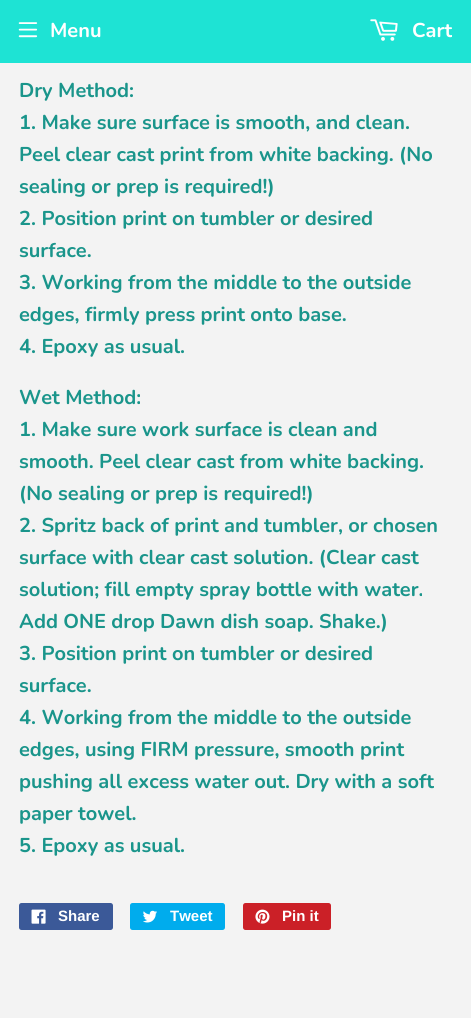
#include <cairo.h>
#include <math.h>
#include <stddef.h>


static void set_color(cairo_t *cr, unsigned color) {
    cairo_set_source_rgb(cr, (color >> 16) / 255.0, (color >> 8 & 255) / 255.0, (color & 255) / 255.0);
}

static void draw_text(cairo_t *cr, double x, double y, const char *s, const char *family, double size, int italic, int bold, unsigned color) {
    cairo_select_font_face(cr, family, italic ? CAIRO_FONT_SLANT_ITALIC : CAIRO_FONT_SLANT_NORMAL,
        bold ? CAIRO_FONT_WEIGHT_BOLD : CAIRO_FONT_WEIGHT_NORMAL);
    cairo_set_font_size(cr, size);
    set_color(cr, color);
    cairo_move_to(cr, x, y);
    cairo_show_text(cr, s);
}

static void fill_rect(cairo_t *cr, double x, double y, double w, double h, unsigned color) {
    set_color(cr, color);
    cairo_rectangle(cr, x, y, w, h);
    cairo_fill(cr);
}

static void rounded_rect(cairo_t *cr, double x, double y, double w, double h, double r) {
    cairo_new_sub_path(cr);
    cairo_arc(cr, x + w - r, y + h - r, r, 0, M_PI / 2);
    cairo_arc(cr, x + r, y + h - r, r, M_PI / 2, M_PI);
    cairo_arc(cr, x + r, y + r, r, M_PI, 1.5 * M_PI);
    cairo_arc(cr, x + w - r, y + r, r, 1.5 * M_PI, 2 * M_PI);
    cairo_close_path(cr);
}

static void draw_image(cairo_t *cr, const char *path, double x, double y, double w, double h) {
    cairo_surface_t *image = cairo_image_surface_create_from_png(path);
    cairo_save(cr);
    cairo_set_source_surface(cr, image, x, y);
    cairo_rectangle(cr, x, y, w, h);
    cairo_fill(cr);
    cairo_restore(cr);
    cairo_surface_destroy(image);
}

int main(void) {
    cairo_surface_t *surface = cairo_image_surface_create(CAIRO_FORMAT_RGB24, 471, 1033);
    cairo_t *cr = cairo_create(surface);
    cairo_font_options_t *options = cairo_font_options_create();
    cairo_font_options_set_hint_metrics(options, CAIRO_HINT_METRICS_OFF);
    cairo_font_options_set_hint_style(options, CAIRO_HINT_STYLE_NONE);
    cairo_set_font_options(cr, options);
    cairo_set_miter_limit(cr, 4);
    set_color(cr, 0xF3F3F3);
    cairo_paint(cr);
    fill_rect(cr, 0, 0, 471, 63, 0x1EE3D4);
    draw_image(cr, "assets/img1.png", 18, 22, 20, 16);
    draw_text(cr, 50, 37, "Menu", "Nunito", 20, 0, 1, 0xFFFFFF);
    draw_image(cr, "assets/img2.png", 370, 19, 28, 22);
    draw_text(cr, 412, 37, "Cart", "Nunito", 20, 0, 1, 0xFFFFFF);
    draw_text(cr, 19, 97, "Dry Method:", "Nunito", 20, 0, 1, 0x1A958B);
    draw_text(cr, 19, 129, "1. Make sure surface is smooth, and clean.", "Nunito", 20, 0, 1, 0x1A958B);
    draw_text(cr, 19, 161, "Peel clear cast print from white backing. (No", "Nunito", 20, 0, 1, 0x1A958B);
    draw_text(cr, 19, 193, "sealing or prep is required!)", "Nunito", 20, 0, 1, 0x1A958B);
    draw_text(cr, 19, 225, "2. Position print on tumbler or desired", "Nunito", 20, 0, 1, 0x1A958B);
    draw_text(cr, 19, 257, "surface.", "Nunito", 20, 0, 1, 0x1A958B);
    draw_text(cr, 19, 289, "3. Working from the middle to the outside", "Nunito", 20, 0, 1, 0x1A958B);
    draw_text(cr, 19, 321, "edges, firmly press print onto base.", "Nunito", 20, 0, 1, 0x1A958B);
    draw_text(cr, 19, 353, "4. Epoxy as usual.", "Nunito", 20, 0, 1, 0x1A958B);
    draw_text(cr, 19, 404, "Wet Method:", "Nunito", 20, 0, 1, 0x1A958B);
    draw_text(cr, 19, 436, "1. Make sure work surface is clean and", "Nunito", 20, 0, 1, 0x1A958B);
    draw_text(cr, 19, 468, "smooth. Peel clear cast from white backing.", "Nunito", 20, 0, 1, 0x1A958B);
    draw_text(cr, 19, 500, "(No sealing or prep is required!)", "Nunito", 20, 0, 1, 0x1A958B);
    draw_text(cr, 19, 532, "2. Spritz back of print and tumbler, or chosen", "Nunito", 20, 0, 1, 0x1A958B);
    draw_text(cr, 19, 564, "surface with clear cast solution. (Clear cast", "Nunito", 20, 0, 1, 0x1A958B);
    draw_text(cr, 19, 596, "solution; fill empty spray bottle with water.", "Nunito", 20, 0, 1, 0x1A958B);
    draw_text(cr, 19, 628, "Add ONE drop Dawn dish soap. Shake.)", "Nunito", 20, 0, 1, 0x1A958B);
    draw_text(cr, 19, 660, "3. Position print on tumbler or desired", "Nunito", 20, 0, 1, 0x1A958B);
    draw_text(cr, 19, 692, "surface.", "Nunito", 20, 0, 1, 0x1A958B);
    draw_text(cr, 19, 724, "4. Working from the middle to the outside", "Nunito", 20, 0, 1, 0x1A958B);
    draw_text(cr, 19, 756, "edges, using FIRM pressure, smooth print", "Nunito", 20, 0, 1, 0x1A958B);
    draw_text(cr, 19, 788, "pushing all excess water out. Dry with a soft", "Nunito", 20, 0, 1, 0x1A958B);
    draw_text(cr, 19, 820, "paper towel.", "Nunito", 20, 0, 1, 0x1A958B);
    draw_text(cr, 19, 852, "5. Epoxy as usual.", "Nunito", 20, 0, 1, 0x1A958B);
    set_color(cr, 0x3B5998);
    rounded_rect(cr, 19, 903, 94, 27, 2.5);
    cairo_fill(cr);
    draw_image(cr, "assets/img3.png", 31, 909, 15, 15);
    draw_text(cr, 58, 921, "Share", "Liberation Sans", 15, 0, 1, 0xFFFFFF);
    set_color(cr, 0x00ACED);
    rounded_rect(cr, 130, 903, 95, 27, 2.5);
    cairo_fill(cr);
    draw_image(cr, "assets/img4.png", 143, 910, 14, 13);
    draw_text(cr, 170, 921, "Tweet", "Liberation Sans", 15, 0, 1, 0xFFFFFF);
    set_color(cr, 0xCB2027);
    rounded_rect(cr, 243, 903, 88, 27, 2.5);
    cairo_fill(cr);
    draw_image(cr, "assets/img5.png", 255, 909, 15, 15);
    draw_text(cr, 282, 921, "Pin it", "Liberation Sans", 15, 0, 1, 0xFFFFFF);
    fill_rect(cr, 0, 1018, 471, 15, 0xFFFFFF);
    cairo_surface_write_to_png(surface, "output.png");
    cairo_font_options_destroy(options);
    cairo_destroy(cr);
    cairo_surface_destroy(surface);
    return 0;
}
